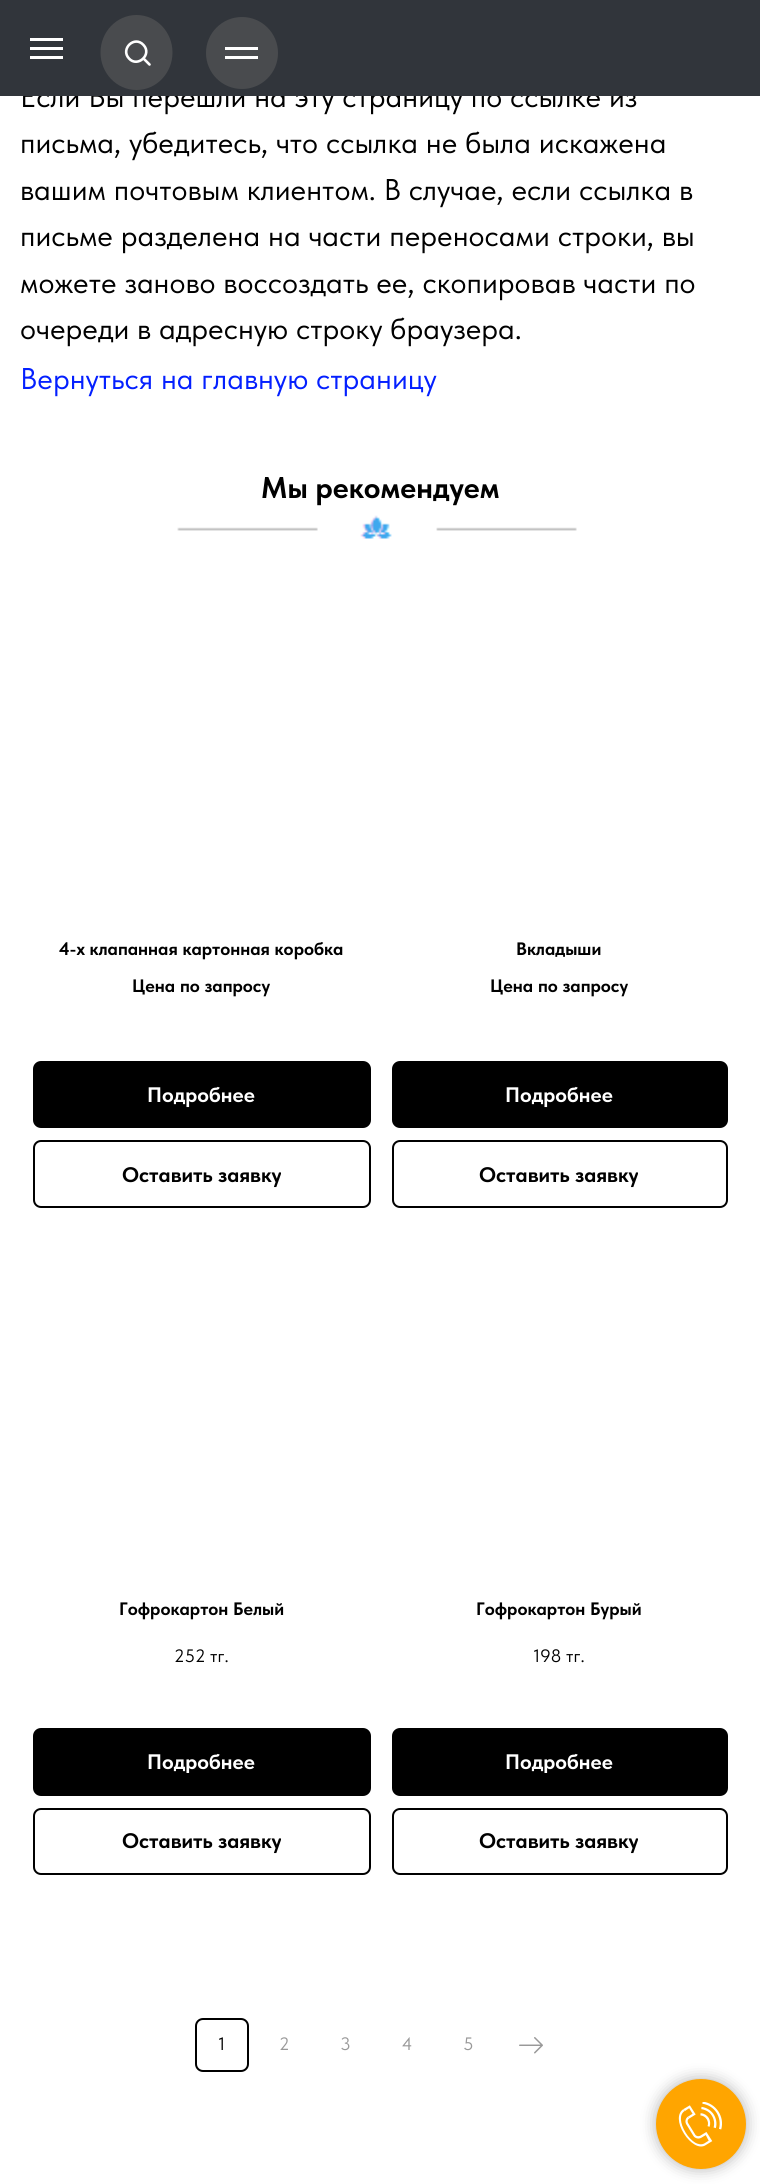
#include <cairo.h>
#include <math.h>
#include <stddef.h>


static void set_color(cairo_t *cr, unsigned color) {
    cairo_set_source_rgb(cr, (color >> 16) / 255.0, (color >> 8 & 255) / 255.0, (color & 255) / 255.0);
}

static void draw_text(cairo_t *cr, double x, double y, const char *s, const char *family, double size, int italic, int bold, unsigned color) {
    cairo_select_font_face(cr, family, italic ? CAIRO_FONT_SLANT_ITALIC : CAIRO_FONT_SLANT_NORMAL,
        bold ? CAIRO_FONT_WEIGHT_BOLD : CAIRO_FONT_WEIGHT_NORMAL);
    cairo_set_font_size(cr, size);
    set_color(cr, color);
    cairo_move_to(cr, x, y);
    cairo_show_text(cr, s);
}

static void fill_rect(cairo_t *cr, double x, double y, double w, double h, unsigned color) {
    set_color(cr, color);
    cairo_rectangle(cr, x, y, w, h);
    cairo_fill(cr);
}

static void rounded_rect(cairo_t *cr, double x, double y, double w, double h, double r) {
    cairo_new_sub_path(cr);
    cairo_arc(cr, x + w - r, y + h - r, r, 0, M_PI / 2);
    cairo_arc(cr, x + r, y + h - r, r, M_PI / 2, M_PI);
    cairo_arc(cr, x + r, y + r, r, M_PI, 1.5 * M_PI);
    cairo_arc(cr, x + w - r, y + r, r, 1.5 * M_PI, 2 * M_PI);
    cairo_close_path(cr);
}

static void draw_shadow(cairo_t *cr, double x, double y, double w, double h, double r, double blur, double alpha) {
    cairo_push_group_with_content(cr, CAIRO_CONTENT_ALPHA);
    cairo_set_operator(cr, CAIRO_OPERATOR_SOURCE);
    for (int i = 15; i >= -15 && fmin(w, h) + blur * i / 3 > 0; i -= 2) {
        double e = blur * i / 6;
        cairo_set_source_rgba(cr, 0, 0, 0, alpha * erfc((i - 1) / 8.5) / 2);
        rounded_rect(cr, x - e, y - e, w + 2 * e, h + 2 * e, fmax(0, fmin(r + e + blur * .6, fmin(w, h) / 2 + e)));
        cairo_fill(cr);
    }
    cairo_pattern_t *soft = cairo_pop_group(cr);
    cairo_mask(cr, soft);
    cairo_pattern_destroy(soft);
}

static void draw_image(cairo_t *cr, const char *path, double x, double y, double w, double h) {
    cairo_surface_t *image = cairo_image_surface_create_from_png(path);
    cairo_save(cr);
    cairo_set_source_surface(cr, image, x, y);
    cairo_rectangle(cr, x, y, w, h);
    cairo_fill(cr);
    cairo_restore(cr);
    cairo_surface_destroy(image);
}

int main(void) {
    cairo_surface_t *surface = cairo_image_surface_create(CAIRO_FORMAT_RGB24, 760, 2184);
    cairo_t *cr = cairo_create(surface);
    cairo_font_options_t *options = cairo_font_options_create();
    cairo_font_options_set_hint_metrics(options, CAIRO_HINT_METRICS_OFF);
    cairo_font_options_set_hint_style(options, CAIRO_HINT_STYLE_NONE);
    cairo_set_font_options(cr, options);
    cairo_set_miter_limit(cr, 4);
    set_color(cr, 0xFFFFFF);
    cairo_paint(cr);
    draw_text(cr, 20, 107, "Если Вы перешли на эту страницу по ссылке из", "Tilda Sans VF", 30, 0, 0, 0x000000);
    fill_rect(cr, 0, 0, 760, 96, 0x31353B);
    fill_rect(cr, 30, 38, 33, 3, 0xFFFFFF);
    fill_rect(cr, 30, 47, 33, 3, 0xFFFFFF);
    fill_rect(cr, 30, 56, 33, 3, 0xFFFFFF);
    set_color(cr, 0x494B4E);
    cairo_new_path(cr);
    cairo_move_to(cr, 136.5, 15);
    cairo_curve_to(cr, 156.5, 15, 172.5, 32, 172.5, 52.5);
    cairo_curve_to(cr, 172.5, 73, 156.5, 90, 136.5, 90);
    cairo_curve_to(cr, 116.5, 90, 100.5, 73, 100.5, 52.5);
    cairo_curve_to(cr, 100.5, 32, 116.5, 15, 136.5, 15);
    cairo_close_path(cr);
    cairo_fill(cr);
    cairo_new_path(cr);
    cairo_move_to(cr, 143.5, 45);
    cairo_curve_to(cr, 152.5, 54.5, 137.5, 68, 129, 58.5);
    cairo_curve_to(cr, 120, 49, 134.5, 35, 143.5, 45);
    cairo_close_path(cr);
    set_color(cr, 0xFFFFFF);
    cairo_set_line_width(cr, 2.6);
    cairo_stroke(cr);
    cairo_new_path(cr);
    cairo_move_to(cr, 144.5, 59.5);
    cairo_line_to(cr, 149.5, 64.5);
    cairo_set_line_cap(cr, CAIRO_LINE_CAP_ROUND);
    cairo_stroke(cr);
    set_color(cr, 0x494B4E);
    cairo_arc(cr, 242, 53, 36, 0, 2 * M_PI);
    cairo_fill(cr);
    fill_rect(cr, 225, 47, 33, 3, 0xFFFFFF);
    fill_rect(cr, 225, 56, 33, 3, 0xFFFFFF);
    draw_text(cr, 20, 153, "письма, убедитесь, что ссылка не была искажена", "Tilda Sans VF", 30, 0, 0, 0x000000);
    draw_text(cr, 20, 200, "вашим почтовым клиентом. В случае, если ссылка в", "Tilda Sans VF", 30, 0, 0, 0x000000);
    draw_text(cr, 20, 246, "письме разделена на части переносами строки, вы", "Tilda Sans VF", 30, 0, 0, 0x000000);
    draw_text(cr, 20, 293, "можете заново воссоздать ее, скопировав части по", "Tilda Sans VF", 30, 0, 0, 0x000000);
    draw_text(cr, 20, 339, "очереди в адресную строку браузера.", "Tilda Sans VF", 30, 0, 0, 0x000000);
    draw_text(cr, 20, 389, "Вернуться на главную страницу", "Tilda Sans VF", 30, 0, 0, 0x0420FF);
    draw_text(cr, 261, 498, "Мы рекомендуем", "Tilda Sans VF", 30, 0, 1, 0x000000);
    draw_image(cr, "assets/img1.png", 177, 515, 400, 24);
    draw_text(cr, 59, 955, "4-х клапанная картонная коробка", "Tilda Sans VF", 18, 0, 1, 0x000000);
    draw_text(cr, 132, 992, "Цена по запросу", "Tilda Sans VF", 18, 0, 1, 0x000000);
    rounded_rect(cr, 33, 1061, 338, 67, 8);
    cairo_fill(cr);
    draw_text(cr, 147, 1102, "Подробнее", "Tilda Sans VF", 21, 0, 1, 0xFFFFFF);
    rounded_rect(cr, 34, 1141, 336, 66, 7);
    set_color(cr, 0x000000);
    cairo_set_line_width(cr, 2);
    cairo_set_line_cap(cr, CAIRO_LINE_CAP_BUTT);
    cairo_stroke(cr);
    draw_text(cr, 122, 1182, "Оставить заявку", "Tilda Sans VF", 21, 0, 1, 0x000000);
    draw_text(cr, 516, 955, "Вкладыши", "Tilda Sans VF", 18, 0, 1, 0x000000);
    draw_text(cr, 490, 992, "Цена по запросу", "Tilda Sans VF", 18, 0, 1, 0x000000);
    rounded_rect(cr, 392, 1061, 336, 67, 8);
    cairo_fill(cr);
    draw_text(cr, 505, 1102, "Подробнее", "Tilda Sans VF", 21, 0, 1, 0xFFFFFF);
    rounded_rect(cr, 393, 1141, 334, 66, 7);
    set_color(cr, 0x000000);
    cairo_stroke(cr);
    draw_text(cr, 479, 1182, "Оставить заявку", "Tilda Sans VF", 21, 0, 1, 0x000000);
    draw_text(cr, 119, 1615, "Гофрокартон Белый", "Tilda Sans VF", 18, 0, 1, 0x000000);
    draw_text(cr, 174, 1662, "252", "Tilda Sans VF", 18, 0, 0, 0x000000);
    draw_text(cr, 210, 1662, "тг.", "Tilda Sans VF", 18, 0, 0, 0x000000);
    rounded_rect(cr, 33, 1728, 338, 68, 8);
    cairo_fill(cr);
    cairo_save(cr);
    cairo_rectangle(cr, 147, 1749, 108, 24);
    cairo_clip(cr);
    draw_text(cr, 147, 1769, "Подробнее", "Tilda Sans VF", 21, 0, 1, 0xFFFFFF);
    cairo_restore(cr);
    rounded_rect(cr, 34, 1809, 336, 65, 7);
    cairo_stroke(cr);
    draw_text(cr, 122, 1848, "Оставить заявку", "Tilda Sans VF", 21, 0, 1, 0x000000);
    draw_text(cr, 476, 1615, "Гофрокартон Бурый", "Tilda Sans VF", 18, 0, 1, 0x000000);
    draw_text(cr, 533, 1662, "198", "Tilda Sans VF", 18, 0, 0, 0x000000);
    draw_text(cr, 566, 1662, "тг.", "Tilda Sans VF", 18, 0, 0, 0x000000);
    rounded_rect(cr, 392, 1728, 336, 68, 8);
    cairo_fill(cr);
    cairo_save(cr);
    cairo_rectangle(cr, 506, 1749, 108, 24);
    cairo_clip(cr);
    draw_text(cr, 505, 1769, "Подробнее", "Tilda Sans VF", 21, 0, 1, 0xFFFFFF);
    cairo_restore(cr);
    rounded_rect(cr, 393, 1809, 334, 65, 7);
    cairo_stroke(cr);
    draw_text(cr, 479, 1848, "Оставить заявку", "Tilda Sans VF", 21, 0, 1, 0x000000);
    rounded_rect(cr, 196, 2019, 52, 52, 7);
    cairo_stroke(cr);
    draw_text(cr, 218, 2050, "1", "Tilda Sans VF", 18, 0, 0, 0x000000);
    draw_text(cr, 279, 2050, "2", "Tilda Sans VF", 18, 0, 0, 0x999999);
    draw_text(cr, 340, 2050, "3", "Tilda Sans VF", 18, 0, 0, 0x999999);
    draw_text(cr, 402, 2050, "4", "Tilda Sans VF", 18, 0, 0, 0x999999);
    draw_text(cr, 463, 2050, "5", "Tilda Sans VF", 18, 0, 0, 0x999999);
    draw_image(cr, "assets/img2.png", 519, 2037, 24, 17);
    set_color(cr, 0x000000);
    draw_shadow(cr, 656, 2079, 90, 90, 45, 7.5, 0.3);
    set_color(cr, 0xFFA500);
    cairo_arc(cr, 701, 2124, 45, 0, 2 * M_PI);
    cairo_fill(cr);
    draw_image(cr, "assets/img3.png", 678, 2102, 44, 45);
    cairo_surface_write_to_png(surface, "output.png");
    cairo_font_options_destroy(options);
    cairo_destroy(cr);
    cairo_surface_destroy(surface);
    return 0;
}
